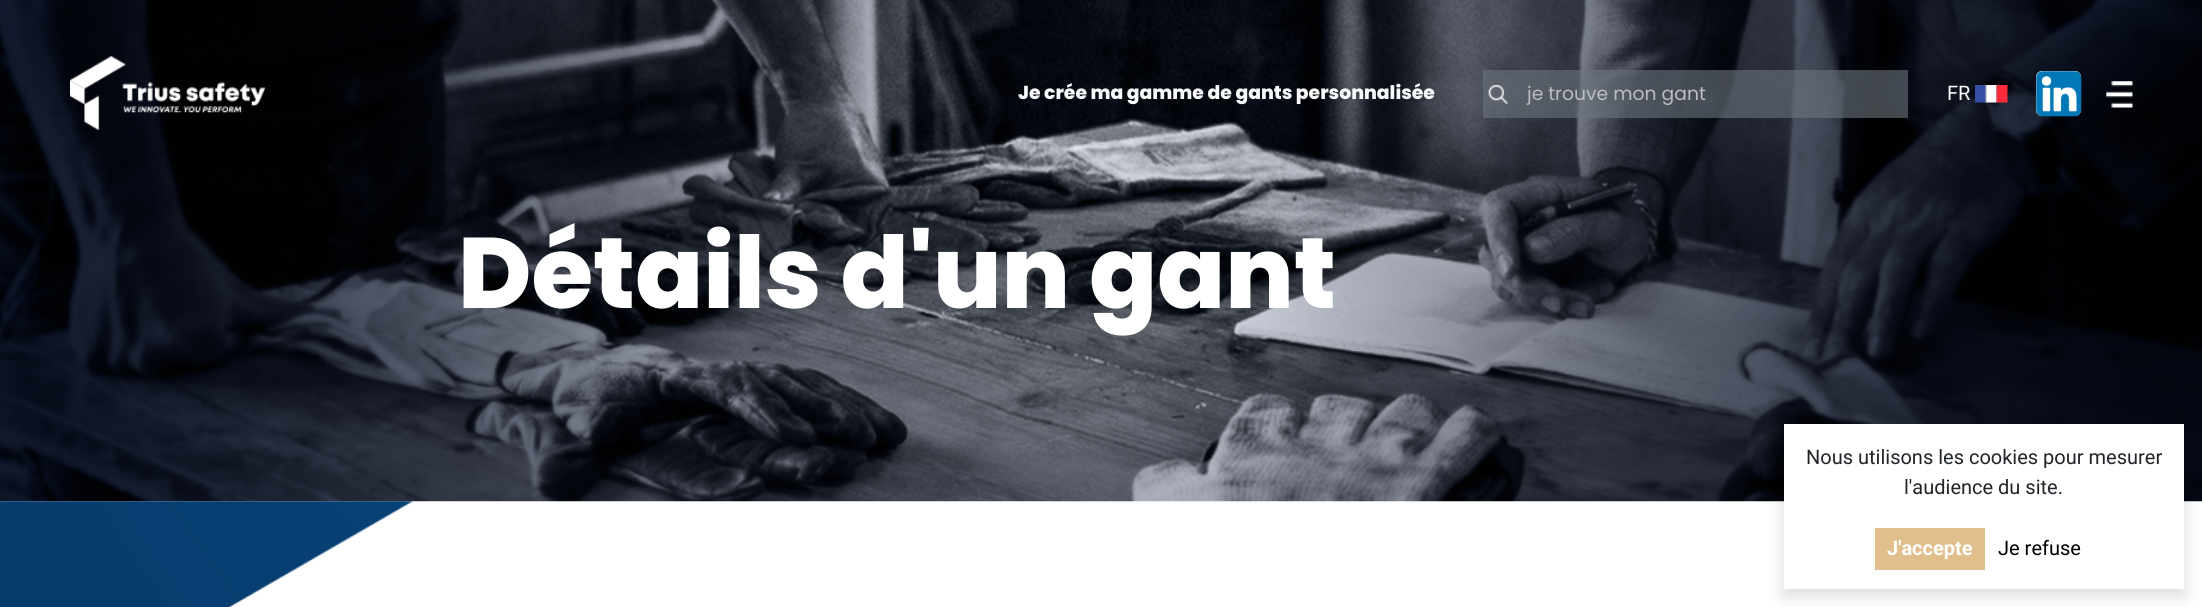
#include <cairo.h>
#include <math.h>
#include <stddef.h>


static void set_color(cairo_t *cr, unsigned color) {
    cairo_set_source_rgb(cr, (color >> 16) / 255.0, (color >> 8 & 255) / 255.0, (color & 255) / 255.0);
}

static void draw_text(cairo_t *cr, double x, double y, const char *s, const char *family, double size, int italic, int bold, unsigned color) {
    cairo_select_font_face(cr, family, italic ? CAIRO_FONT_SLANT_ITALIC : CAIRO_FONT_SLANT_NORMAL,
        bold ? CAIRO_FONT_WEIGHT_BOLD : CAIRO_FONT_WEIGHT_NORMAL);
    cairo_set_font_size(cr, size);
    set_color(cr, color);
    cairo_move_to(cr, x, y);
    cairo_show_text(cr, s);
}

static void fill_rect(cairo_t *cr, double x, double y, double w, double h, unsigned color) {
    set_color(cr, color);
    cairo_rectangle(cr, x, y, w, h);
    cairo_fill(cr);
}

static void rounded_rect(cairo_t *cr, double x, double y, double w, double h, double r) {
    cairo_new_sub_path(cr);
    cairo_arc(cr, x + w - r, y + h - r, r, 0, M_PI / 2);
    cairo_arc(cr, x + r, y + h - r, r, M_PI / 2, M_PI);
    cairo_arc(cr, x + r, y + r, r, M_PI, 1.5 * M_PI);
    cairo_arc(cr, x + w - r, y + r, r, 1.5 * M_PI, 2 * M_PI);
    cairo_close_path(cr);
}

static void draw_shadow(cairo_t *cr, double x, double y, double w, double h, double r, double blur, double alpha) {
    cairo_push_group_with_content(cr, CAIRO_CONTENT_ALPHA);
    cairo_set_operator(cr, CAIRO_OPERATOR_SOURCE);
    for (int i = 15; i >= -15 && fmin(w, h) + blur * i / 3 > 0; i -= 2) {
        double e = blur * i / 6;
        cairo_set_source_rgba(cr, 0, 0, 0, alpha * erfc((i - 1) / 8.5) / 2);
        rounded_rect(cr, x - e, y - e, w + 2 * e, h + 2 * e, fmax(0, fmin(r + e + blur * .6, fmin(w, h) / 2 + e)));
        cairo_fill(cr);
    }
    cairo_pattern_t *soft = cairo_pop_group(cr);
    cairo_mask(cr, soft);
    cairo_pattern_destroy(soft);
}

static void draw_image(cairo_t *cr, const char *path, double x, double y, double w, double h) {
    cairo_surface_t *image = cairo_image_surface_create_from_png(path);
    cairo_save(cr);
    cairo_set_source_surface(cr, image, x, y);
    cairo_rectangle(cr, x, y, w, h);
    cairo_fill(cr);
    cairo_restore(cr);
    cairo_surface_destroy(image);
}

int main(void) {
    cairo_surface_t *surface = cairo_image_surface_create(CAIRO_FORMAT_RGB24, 2202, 607);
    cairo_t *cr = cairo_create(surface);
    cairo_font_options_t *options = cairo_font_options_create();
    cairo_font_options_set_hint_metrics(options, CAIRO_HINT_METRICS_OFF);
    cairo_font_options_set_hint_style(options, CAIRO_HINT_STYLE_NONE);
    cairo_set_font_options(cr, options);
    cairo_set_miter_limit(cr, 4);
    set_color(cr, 0xFFFFFF);
    cairo_paint(cr);
    draw_image(cr, "assets/img6.png", 0, 0, 2202, 502);
    draw_image(cr, "assets/img1.png", 70, 56, 195, 74);
    draw_text(cr, 1018, 99, "Je crée ma gamme de gants personnalisée", "Poppins ExtraBold", 18.75, 0, 0, 0xF8F9FA);
    cairo_set_source_rgba(cr, 0.424, 0.459, 0.49, 0.6);
    cairo_rectangle(cr, 1483, 70, 425, 48);
    cairo_fill(cr);
    draw_image(cr, "assets/img2.png", 1488, 85, 20, 19);
    draw_text(cr, 1527, 100, "je trouve mon gant", "Poppins", 18.75, 0, 0, 0xBABDC0);
    draw_text(cr, 1947, 100, "FR", "Roboto", 20, 0, 0, 0xFFFFFF);
    draw_image(cr, "assets/img3.png", 1975, 85, 33, 18);
    rounded_rect(cr, 2036, 71, 45, 45, 6);
    cairo_fill(cr);
    draw_image(cr, "assets/img4.png", 2036, 71, 46, 46);
    draw_image(cr, "assets/img5.png", 2106, 81, 27, 27);
    draw_text(cr, 458, 308, "Détails d'un gant", "Poppins ExtraBold", 100, 0, 0, 0xFFFFFF);
    draw_image(cr, "assets/img7.png", 0, 501, 413, 106);
    set_color(cr, 0x000000);
    draw_shadow(cr, 1784, 430, 400, 165, 0, 9.5, 0.15);
    fill_rect(cr, 1784, 424, 400, 165, 0xFFFFFF);
    draw_text(cr, 1806, 464, "Nous utilisons les cookies pour mesurer", "Roboto", 20, 0, 0, 0x212529);
    draw_text(cr, 1904, 494, "l'audience du site.", "Roboto", 20, 0, 0, 0x212529);
    fill_rect(cr, 1875, 528, 110, 42, 0xE0BF8C);
    draw_text(cr, 1887, 555, "J'accepte", "Roboto", 20, 0, 1, 0xFFFFFF);
    draw_text(cr, 1998, 555, "Je refuse", "Roboto", 20, 0, 0, 0x000000);
    cairo_surface_write_to_png(surface, "output.png");
    cairo_font_options_destroy(options);
    cairo_destroy(cr);
    cairo_surface_destroy(surface);
    return 0;
}
